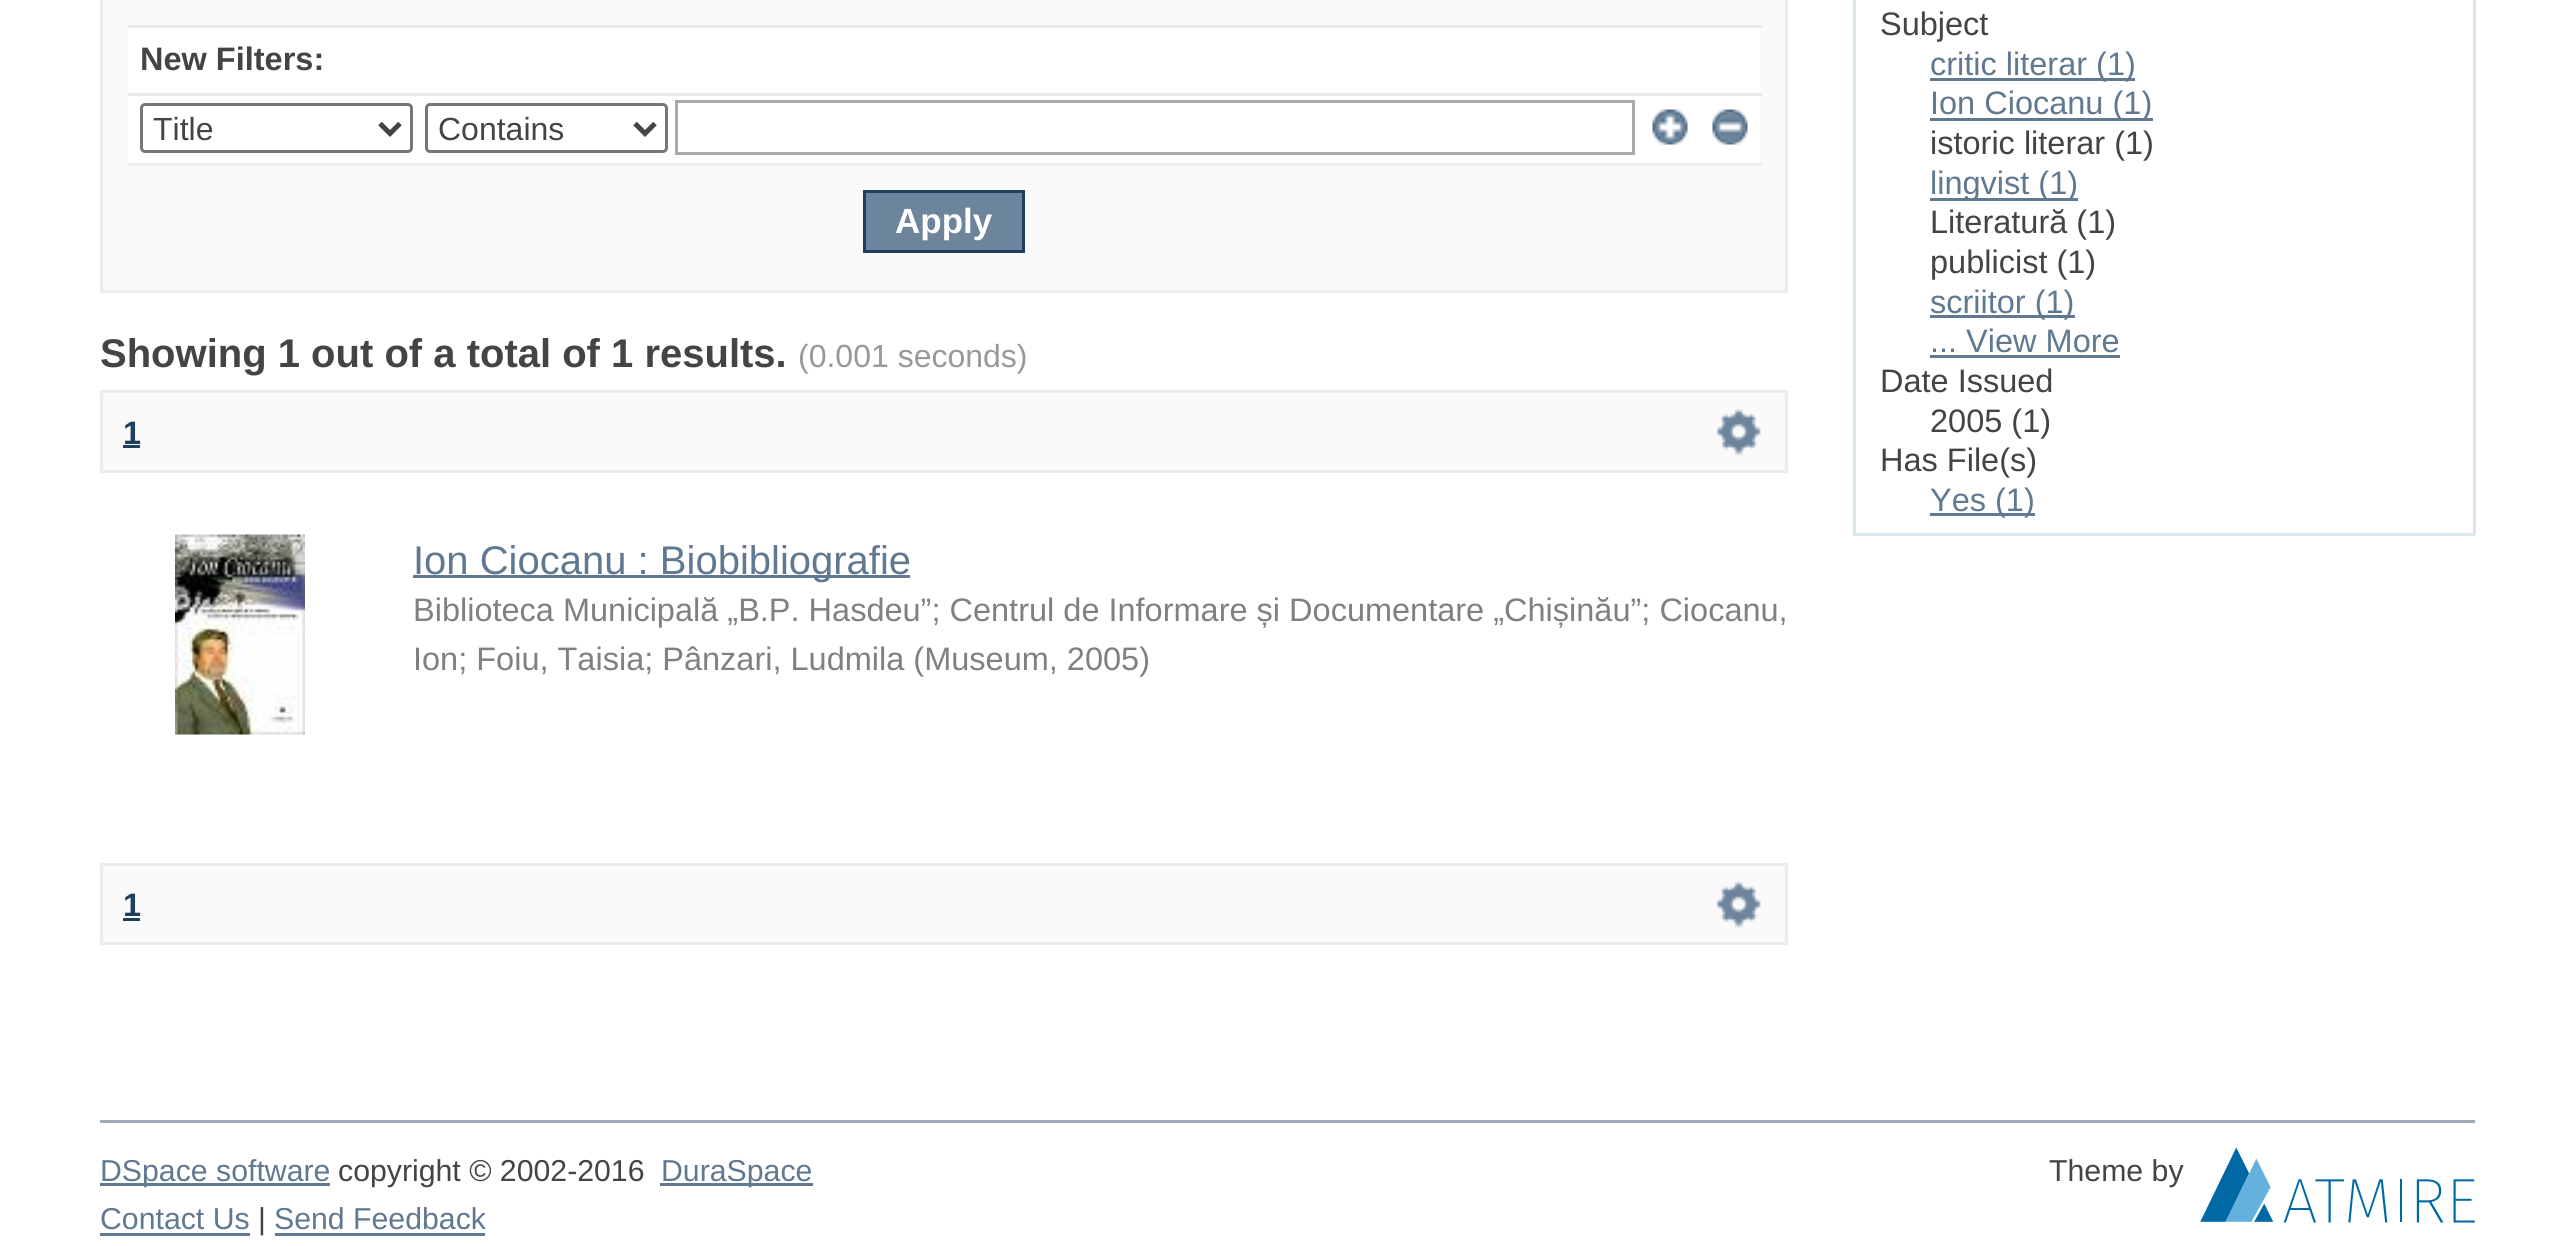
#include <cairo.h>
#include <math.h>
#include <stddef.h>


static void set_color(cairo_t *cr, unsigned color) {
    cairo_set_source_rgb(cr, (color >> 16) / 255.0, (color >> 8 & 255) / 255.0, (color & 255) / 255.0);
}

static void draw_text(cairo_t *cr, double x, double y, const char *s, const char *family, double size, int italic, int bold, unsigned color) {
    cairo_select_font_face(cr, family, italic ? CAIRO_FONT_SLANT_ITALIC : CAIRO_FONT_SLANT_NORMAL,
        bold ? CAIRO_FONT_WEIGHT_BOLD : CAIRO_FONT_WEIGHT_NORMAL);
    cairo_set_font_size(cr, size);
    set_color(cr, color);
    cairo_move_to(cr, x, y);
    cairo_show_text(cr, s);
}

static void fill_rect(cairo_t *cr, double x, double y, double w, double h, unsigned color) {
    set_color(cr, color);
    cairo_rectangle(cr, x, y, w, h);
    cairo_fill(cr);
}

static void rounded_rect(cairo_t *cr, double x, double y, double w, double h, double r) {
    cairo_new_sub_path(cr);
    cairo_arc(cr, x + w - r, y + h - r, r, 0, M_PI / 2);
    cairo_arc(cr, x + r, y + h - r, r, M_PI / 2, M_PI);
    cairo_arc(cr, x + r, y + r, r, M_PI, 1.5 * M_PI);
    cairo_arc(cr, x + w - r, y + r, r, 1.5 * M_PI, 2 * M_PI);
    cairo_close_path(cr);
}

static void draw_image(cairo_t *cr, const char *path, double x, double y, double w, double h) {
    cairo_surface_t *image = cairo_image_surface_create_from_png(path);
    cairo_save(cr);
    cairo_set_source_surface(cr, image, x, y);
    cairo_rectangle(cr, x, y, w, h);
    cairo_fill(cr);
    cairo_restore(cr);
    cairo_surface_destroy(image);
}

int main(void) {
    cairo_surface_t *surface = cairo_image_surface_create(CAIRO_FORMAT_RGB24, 2575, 1246);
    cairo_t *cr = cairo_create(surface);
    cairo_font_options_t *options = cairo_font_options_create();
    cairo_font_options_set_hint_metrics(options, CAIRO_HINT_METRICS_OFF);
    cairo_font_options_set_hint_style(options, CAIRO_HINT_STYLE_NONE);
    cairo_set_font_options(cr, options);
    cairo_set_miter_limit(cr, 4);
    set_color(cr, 0xFFFFFF);
    cairo_paint(cr);
    set_color(cr, 0xFAFAFA);
    cairo_rectangle(cr, 101.5, -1.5, 1685, 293);
    cairo_fill_preserve(cr);
    set_color(cr, 0xEBEBEB);
    cairo_set_line_width(cr, 3);
    cairo_stroke(cr);
    fill_rect(cr, 128, 28, 1632, 135, 0xFFFFFF);
    fill_rect(cr, 128, 25, 1635, 3, 0xEBEBEB);
    draw_text(cr, 140, 70, "New Filters:", "Liberation Sans", 32.5, 0, 1, 0x444444);
    fill_rect(cr, 128, 93, 1635, 3, 0xEBEBEB);
    rounded_rect(cr, 141.5, 104.5, 270, 47, 3.5);
    set_color(cr, 0x767676);
    cairo_stroke(cr);
    cairo_new_path(cr);
    cairo_move_to(cr, 380, 123.5);
    cairo_line_to(cr, 390, 133.5);
    cairo_line_to(cr, 400, 123.5);
    set_color(cr, 0x444444);
    cairo_set_line_width(cr, 5);
    cairo_stroke(cr);
    draw_text(cr, 153, 140, "Title", "Liberation Sans", 32, 0, 0, 0x444444);
    rounded_rect(cr, 426.5, 104.5, 240, 47, 3.5);
    set_color(cr, 0x767676);
    cairo_set_line_width(cr, 3);
    cairo_stroke(cr);
    cairo_new_path(cr);
    cairo_move_to(cr, 635, 123.5);
    cairo_line_to(cr, 645, 133.5);
    cairo_line_to(cr, 655, 123.5);
    set_color(cr, 0x444444);
    cairo_set_line_width(cr, 5);
    cairo_stroke(cr);
    draw_text(cr, 438, 140, "Contains", "Liberation Sans", 32, 0, 0, 0x444444);
    cairo_rectangle(cr, 676.5, 101.5, 957, 52);
    set_color(cr, 0xAAAAAA);
    cairo_set_line_width(cr, 3);
    cairo_stroke(cr);
    draw_image(cr, "assets/img1.png", 1652, 109, 36, 36);
    draw_image(cr, "assets/img2.png", 1712, 109, 36, 36);
    fill_rect(cr, 128, 163, 1635, 3, 0xEBEBEB);
    set_color(cr, 0x6D859C);
    cairo_rectangle(cr, 864.5, 191.5, 159, 60);
    cairo_fill_preserve(cr);
    set_color(cr, 0x1F3F5E);
    cairo_stroke(cr);
    draw_text(cr, 895, 233, "Apply", "Liberation Sans", 35, 0, 1, 0xFFFFFF);
    draw_text(cr, 100, 367, "Showing 1 out of a total of 1 results.", "Liberation Sans", 40, 0, 1, 0x444444);
    draw_text(cr, 798, 367, "(0.001 seconds)", "Liberation Sans", 32, 0, 0, 0x999999);
    set_color(cr, 0xFAFAFA);
    cairo_rectangle(cr, 101.5, 391.5, 1685, 80);
    cairo_fill_preserve(cr);
    set_color(cr, 0xEBEBEB);
    cairo_stroke(cr);
    draw_text(cr, 123, 444, "1", "Liberation Sans", 32.5, 0, 1, 0x1F3F5E);
    fill_rect(cr, 123, 445, 17, 3, 0x1F3F5E);
    draw_image(cr, "assets/img3.png", 1716, 409, 45, 47);
    draw_image(cr, "assets/img4.png", 175, 534, 130, 201);
    fill_rect(cr, 413, 575, 497, 3, 0x607890);
    draw_text(cr, 413, 574, "Ion Ciocanu : Biobibliografie", "Liberation Sans", 40, 0, 0, 0x607890);
    draw_text(cr, 413, 621, "Biblioteca Municipală „B.P. Hasdeu”; Centrul de Informare și Documentare „Chișinău”; Ciocanu,", "Liberation Sans", 32.5, 0, 0, 0x808080);
    draw_text(cr, 413, 670, "Ion; Foiu, Taisia; Pânzari, Ludmila (Museum, 2005)", "Liberation Sans", 32.5, 0, 0, 0x808080);
    set_color(cr, 0xFAFAFA);
    cairo_rectangle(cr, 101.5, 864.5, 1685, 79);
    cairo_fill_preserve(cr);
    set_color(cr, 0xEBEBEB);
    cairo_stroke(cr);
    draw_text(cr, 123, 916, "1", "Liberation Sans", 32.5, 0, 1, 0x1F3F5E);
    fill_rect(cr, 123, 918, 17, 3, 0x1F3F5E);
    draw_image(cr, "assets/img5.png", 1716, 881, 45, 47);
    fill_rect(cr, 2473, 0, 3, 535, 0xD8E8EB);
    fill_rect(cr, 1853, 533, 622, 3, 0xD8E8EB);
    fill_rect(cr, 1853, 0, 3, 535, 0xD8E8EB);
    draw_text(cr, 1880, 35, "Subject", "Liberation Sans", 32.5, 0, 0, 0x444444);
    fill_rect(cr, 1930, 78, 205, 3, 0x607890);
    draw_text(cr, 1930, 75, "critic literar (1)", "Liberation Sans", 32.5, 0, 0, 0x607890);
    fill_rect(cr, 1930, 118, 223, 3, 0x607890);
    draw_text(cr, 1930, 114, "Ion Ciocanu (1)", "Liberation Sans", 32.5, 0, 0, 0x607890);
    draw_text(cr, 1930, 154, "istoric literar (1)", "Liberation Sans", 32.5, 0, 0, 0x444444);
    fill_rect(cr, 1930, 198, 148, 3, 0x607890);
    draw_text(cr, 1930, 194, "lingvist (1)", "Liberation Sans", 32.5, 0, 0, 0x607890);
    draw_text(cr, 1930, 233, "Literatură (1)", "Liberation Sans", 32.5, 0, 0, 0x444444);
    draw_text(cr, 1930, 273, "publicist (1)", "Liberation Sans", 32.5, 0, 0, 0x444444);
    fill_rect(cr, 1930, 315, 145, 3, 0x607890);
    draw_text(cr, 1930, 313, "scriitor (1)", "Liberation Sans", 32.5, 0, 0, 0x607890);
    draw_text(cr, 1930, 352, "... View More", "Liberation Sans", 32.5, 0, 0, 0x607890);
    fill_rect(cr, 1930, 355, 190, 3, 0x607890);
    draw_text(cr, 1880, 392, "Date Issued", "Liberation Sans", 32.5, 0, 0, 0x444444);
    draw_text(cr, 1930, 432, "2005 (1)", "Liberation Sans", 32.5, 0, 0, 0x444444);
    draw_text(cr, 1880, 471, "Has File(s)", "Liberation Sans", 32.5, 0, 0, 0x444444);
    fill_rect(cr, 1930, 513, 105, 3, 0x607890);
    draw_text(cr, 1930, 511, "Yes (1)", "Liberation Sans", 32.5, 0, 0, 0x607890);
    fill_rect(cr, 100, 1120, 2375, 3, 0x9CACBA);
    fill_rect(cr, 100, 1183, 230, 3, 0x607890);
    draw_text(cr, 100, 1181, "DSpace software", "Liberation Sans", 30.25, 0, 0, 0x607890);
    draw_text(cr, 338, 1181, "copyright © 2002-2016", "Liberation Sans", 30.25, 0, 0, 0x444444);
    fill_rect(cr, 660, 1183, 153, 3, 0x607890);
    draw_text(cr, 661, 1181, "DuraSpace", "Liberation Sans", 30.25, 0, 0, 0x607890);
    draw_text(cr, 2049, 1181, "Theme by", "Liberation Sans", 30.25, 0, 0, 0x444444);
    draw_image(cr, "assets/img6.png", 2200, 1148, 275, 75);
    draw_text(cr, 100, 1229, "Contact Us", "Liberation Sans", 30.25, 0, 0, 0x607890);
    fill_rect(cr, 100, 1233, 150, 3, 0x607890);
    draw_text(cr, 258, 1229, "|", "Liberation Sans", 30.25, 0, 0, 0x444444);
    draw_text(cr, 274, 1229, "Send Feedback", "Liberation Sans", 30.25, 0, 0, 0x607890);
    fill_rect(cr, 275, 1233, 210, 3, 0x607890);
    cairo_surface_write_to_png(surface, "output.png");
    cairo_font_options_destroy(options);
    cairo_destroy(cr);
    cairo_surface_destroy(surface);
    return 0;
}
